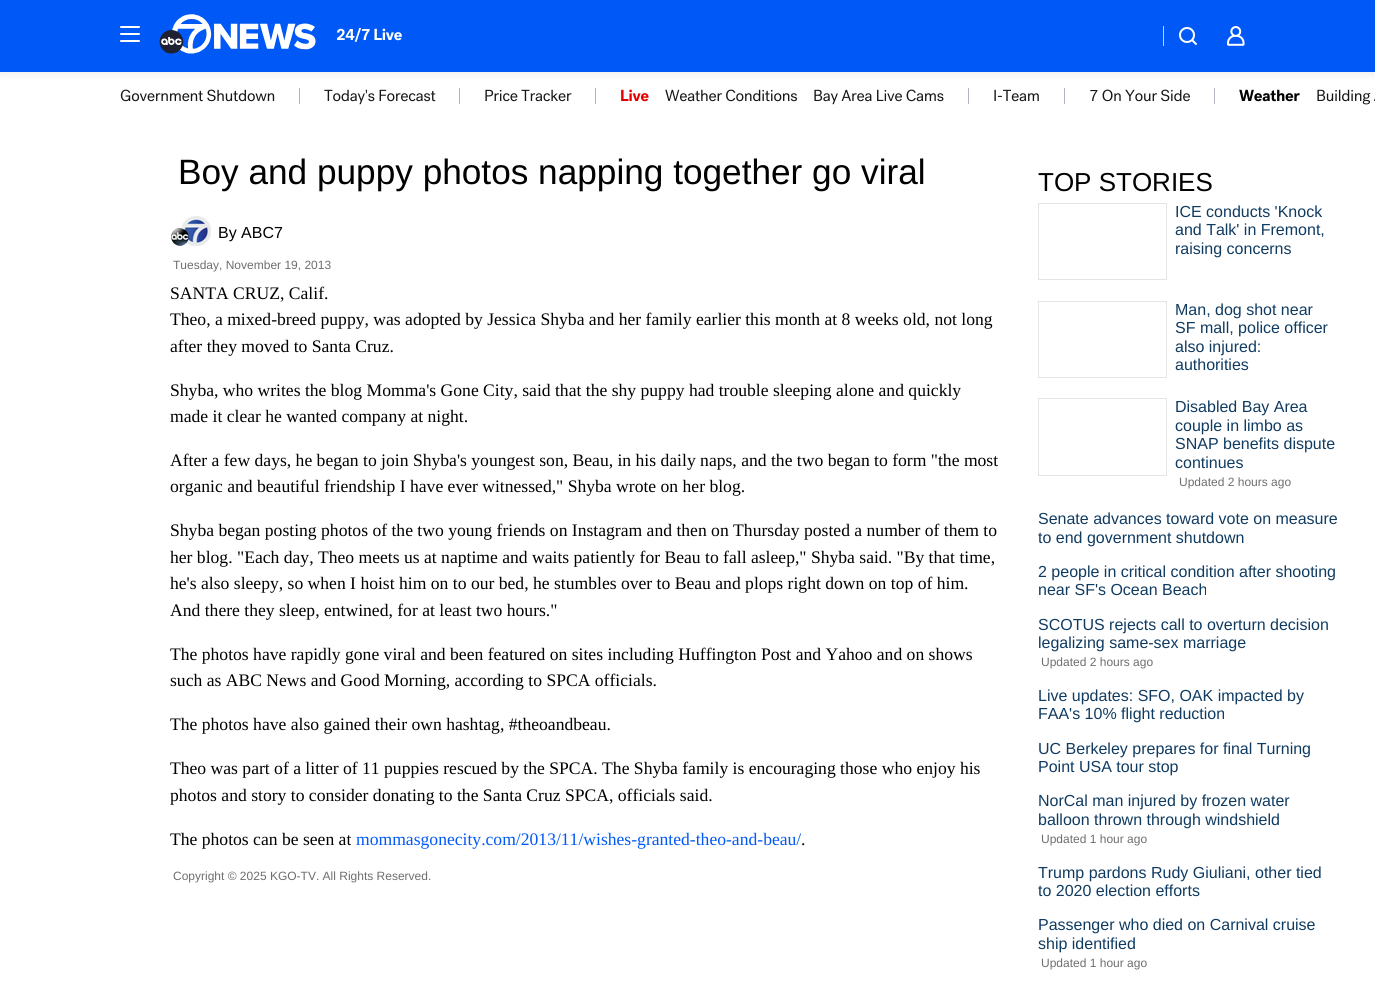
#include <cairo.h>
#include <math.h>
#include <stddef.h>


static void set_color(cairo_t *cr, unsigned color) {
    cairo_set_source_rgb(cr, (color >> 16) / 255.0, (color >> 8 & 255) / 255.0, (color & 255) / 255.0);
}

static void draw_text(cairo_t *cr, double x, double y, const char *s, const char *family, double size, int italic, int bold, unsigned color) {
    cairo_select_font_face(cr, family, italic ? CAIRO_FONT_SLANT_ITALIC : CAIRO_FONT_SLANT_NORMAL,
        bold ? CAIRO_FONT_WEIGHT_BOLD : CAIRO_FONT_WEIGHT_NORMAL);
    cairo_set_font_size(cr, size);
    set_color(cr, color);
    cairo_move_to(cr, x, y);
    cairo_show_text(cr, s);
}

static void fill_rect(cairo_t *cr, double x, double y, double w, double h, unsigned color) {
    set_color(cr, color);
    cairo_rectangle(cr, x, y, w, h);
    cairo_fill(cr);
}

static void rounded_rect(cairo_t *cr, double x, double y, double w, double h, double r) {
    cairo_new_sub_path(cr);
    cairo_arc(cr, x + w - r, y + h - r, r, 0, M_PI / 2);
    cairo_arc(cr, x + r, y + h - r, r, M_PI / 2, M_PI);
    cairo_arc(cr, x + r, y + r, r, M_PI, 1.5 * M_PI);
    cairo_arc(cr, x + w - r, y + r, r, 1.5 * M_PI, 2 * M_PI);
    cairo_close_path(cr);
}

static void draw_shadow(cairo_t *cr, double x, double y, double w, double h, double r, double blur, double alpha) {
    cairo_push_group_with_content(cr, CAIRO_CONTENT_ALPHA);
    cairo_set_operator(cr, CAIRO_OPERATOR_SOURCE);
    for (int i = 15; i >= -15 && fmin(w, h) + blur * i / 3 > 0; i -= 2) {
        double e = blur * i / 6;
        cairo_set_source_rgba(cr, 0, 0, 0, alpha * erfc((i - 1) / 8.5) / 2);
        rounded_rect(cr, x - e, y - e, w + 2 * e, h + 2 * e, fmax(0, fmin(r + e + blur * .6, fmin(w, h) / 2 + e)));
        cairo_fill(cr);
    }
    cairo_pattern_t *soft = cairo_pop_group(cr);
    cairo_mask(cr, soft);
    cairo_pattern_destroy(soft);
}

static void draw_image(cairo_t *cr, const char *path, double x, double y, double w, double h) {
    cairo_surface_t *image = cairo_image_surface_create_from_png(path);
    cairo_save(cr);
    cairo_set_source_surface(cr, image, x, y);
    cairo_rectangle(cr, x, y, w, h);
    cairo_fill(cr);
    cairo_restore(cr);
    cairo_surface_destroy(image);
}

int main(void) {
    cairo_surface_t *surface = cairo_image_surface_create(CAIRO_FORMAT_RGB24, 1375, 988);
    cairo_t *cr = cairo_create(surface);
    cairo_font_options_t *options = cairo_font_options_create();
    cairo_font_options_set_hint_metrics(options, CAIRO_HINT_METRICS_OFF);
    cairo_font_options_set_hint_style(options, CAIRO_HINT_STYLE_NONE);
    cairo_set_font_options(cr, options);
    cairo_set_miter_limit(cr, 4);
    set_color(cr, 0xFFFFFF);
    cairo_paint(cr);
    draw_image(cr, "assets/img5.png", 120, 89, 155, 13);
    fill_rect(cr, 299, 88, 1, 16, 0xB0B5BE);
    draw_image(cr, "assets/img6.png", 324, 89, 112, 16);
    fill_rect(cr, 459, 88, 1, 16, 0xB0B5BE);
    draw_image(cr, "assets/img7.png", 485, 89, 87, 13);
    fill_rect(cr, 595, 88, 1, 16, 0xB0B5BE);
    draw_image(cr, "assets/img8.png", 621, 89, 28, 13);
    draw_image(cr, "assets/img9.png", 665, 89, 132, 13);
    draw_image(cr, "assets/img10.png", 814, 89, 130, 16);
    fill_rect(cr, 968, 88, 1, 16, 0xB0B5BE);
    draw_image(cr, "assets/img11.png", 994, 89, 45, 13);
    fill_rect(cr, 1064, 88, 1, 16, 0xB0B5BE);
    draw_image(cr, "assets/img12.png", 1090, 89, 100, 13);
    fill_rect(cr, 1214, 88, 1, 16, 0xB0B5BE);
    draw_image(cr, "assets/img13.png", 1239, 89, 61, 13);
    draw_image(cr, "assets/img14.png", 1317, 89, 58, 16);
    set_color(cr, 0x000000);
    draw_shadow(cr, 0, 2, 1375, 72, 0, 5, 0.08);
    fill_rect(cr, 0, 0, 1375, 72, 0x0058F6);
    set_color(cr, 0xFFFFFF);
    rounded_rect(cr, 120, 33, 20, 2, 1);
    cairo_fill(cr);
    rounded_rect(cr, 120, 26, 20, 2, 1);
    cairo_fill(cr);
    rounded_rect(cr, 120, 40, 20, 2, 1);
    cairo_fill(cr);
    draw_image(cr, "assets/img1.png", 159, 14, 157, 40);
    draw_image(cr, "assets/img2.png", 336, 27, 66, 15);
    fill_rect(cr, 1163, 26, 1, 20, 0xCECFCF);
    draw_image(cr, "assets/img3.png", 1179, 27, 18, 18);
    draw_image(cr, "assets/img4.png", 1227, 26, 18, 20);
    draw_text(cr, 178, 184, "Boy and puppy photos napping together go viral", "Liberation Sans", 35.2, 0, 0, 0x000000);
    draw_image(cr, "assets/img15.png", 171, 216, 40, 30);
    draw_text(cr, 218, 238, "By ABC7", "Liberation Sans", 16, 0, 0, 0x000000);
    draw_text(cr, 173, 269, "Tuesday, November 19, 2013", "Liberation Sans", 12, 0, 0, 0x6E6E6E);
    draw_text(cr, 170, 299, "SANTA CRUZ, Calif.", "Liberation Serif", 17.6, 0, 0, 0x000000);
    draw_text(cr, 170, 325, "Theo, a mixed-breed puppy, was adopted by Jessica Shyba and her family earlier this month at 8 weeks old, not long", "Liberation Serif", 17.6, 0, 0, 0x000000);
    draw_text(cr, 170, 352, "after they moved to Santa Cruz.", "Liberation Serif", 17.6, 0, 0, 0x000000);
    draw_text(cr, 170, 396, "Shyba, who writes the blog Momma's Gone City, said that the shy puppy had trouble sleeping alone and quickly", "Liberation Serif", 17.6, 0, 0, 0x000000);
    draw_text(cr, 170, 422, "made it clear he wanted company at night.", "Liberation Serif", 17.6, 0, 0, 0x000000);
    draw_text(cr, 170, 466, "After a few days, he began to join Shyba's youngest son, Beau, in his daily naps, and the two began to form \"the most", "Liberation Serif", 17.6, 0, 0, 0x000000);
    draw_text(cr, 170, 492, "organic and beautiful friendship I have ever witnessed,\" Shyba wrote on her blog.", "Liberation Serif", 17.6, 0, 0, 0x000000);
    draw_text(cr, 170, 536, "Shyba began posting photos of the two young friends on Instagram and then on Thursday posted a number of them to", "Liberation Serif", 17.6, 0, 0, 0x000000);
    draw_text(cr, 170, 563, "her blog. \"Each day, Theo meets us at naptime and waits patiently for Beau to fall asleep,\" Shyba said. \"By that time,", "Liberation Serif", 17.6, 0, 0, 0x000000);
    draw_text(cr, 170, 589, "he's also sleepy, so when I hoist him on to our bed, he stumbles over to Beau and plops right down on top of him.", "Liberation Serif", 17.6, 0, 0, 0x000000);
    draw_text(cr, 170, 616, "And there they sleep, entwined, for at least two hours.\"", "Liberation Serif", 17.6, 0, 0, 0x000000);
    draw_text(cr, 170, 660, "The photos have rapidly gone viral and been featured on sites including Huffington Post and Yahoo and on shows", "Liberation Serif", 17.6, 0, 0, 0x000000);
    draw_text(cr, 170, 686, "such as ABC News and Good Morning, according to SPCA officials.", "Liberation Serif", 17.6, 0, 0, 0x000000);
    draw_text(cr, 170, 730, "The photos have also gained their own hashtag, #theoandbeau.", "Liberation Serif", 17.6, 0, 0, 0x000000);
    draw_text(cr, 170, 774, "Theo was part of a litter of 11 puppies rescued by the SPCA. The Shyba family is encouraging those who enjoy his", "Liberation Serif", 17.6, 0, 0, 0x000000);
    draw_text(cr, 170, 801, "photos and story to consider donating to the Santa Cruz SPCA, officials said.", "Liberation Serif", 17.6, 0, 0, 0x000000);
    draw_text(cr, 170, 845, "The photos can be seen at", "Liberation Serif", 17.6, 0, 0, 0x000000);
    draw_text(cr, 356, 845, "mommasgonecity.com/2013/11/wishes-granted-theo-and-beau/", "Liberation Serif", 17.6, 0, 0, 0x0058F6);
    draw_text(cr, 801, 845, ".", "Liberation Serif", 17.6, 0, 0, 0x000000);
    draw_text(cr, 173, 880, "Copyright © 2025 KGO-TV. All Rights Reserved.", "Liberation Sans", 12, 0, 0, 0x6E6E6E);
    draw_text(cr, 1038, 191, "TOP STORIES", "Liberation Sans", 26, 0, 0, 0x000000);
    cairo_rectangle(cr, 1038.5, 203.5, 128, 76);
    set_color(cr, 0xE4E4E4);
    cairo_set_line_width(cr, 1);
    cairo_stroke(cr);
    draw_text(cr, 1175, 217, "ICE conducts 'Knock", "Liberation Sans", 16, 0, 0, 0x103B61);
    draw_text(cr, 1175, 235, "and Talk' in Fremont,", "Liberation Sans", 16, 0, 0, 0x103B61);
    draw_text(cr, 1175, 254, "raising concerns", "Liberation Sans", 16, 0, 0, 0x103B61);
    cairo_rectangle(cr, 1038.5, 301.5, 128, 76);
    set_color(cr, 0xE4E4E4);
    cairo_stroke(cr);
    draw_text(cr, 1175, 315, "Man, dog shot near", "Liberation Sans", 16, 0, 0, 0x103B61);
    draw_text(cr, 1175, 333, "SF mall, police officer", "Liberation Sans", 16, 0, 0, 0x103B61);
    draw_text(cr, 1175, 352, "also injured:", "Liberation Sans", 16, 0, 0, 0x103B61);
    draw_text(cr, 1175, 370, "authorities", "Liberation Sans", 16, 0, 0, 0x103B61);
    cairo_rectangle(cr, 1038.5, 398.5, 128, 77);
    set_color(cr, 0xE4E4E4);
    cairo_stroke(cr);
    draw_text(cr, 1175, 412, "Disabled Bay Area", "Liberation Sans", 16, 0, 0, 0x103B61);
    draw_text(cr, 1175, 431, "couple in limbo as", "Liberation Sans", 16, 0, 0, 0x103B61);
    draw_text(cr, 1175, 449, "SNAP benefits dispute", "Liberation Sans", 16, 0, 0, 0x103B61);
    draw_text(cr, 1175, 468, "continues", "Liberation Sans", 16, 0, 0, 0x103B61);
    draw_text(cr, 1179, 486, "Updated 2 hours ago", "Liberation Sans", 12, 0, 0, 0x6E6E6E);
    draw_text(cr, 1038, 524, "Senate advances toward vote on measure", "Liberation Sans", 16, 0, 0, 0x103B61);
    draw_text(cr, 1038, 543, "to end government shutdown", "Liberation Sans", 16, 0, 0, 0x103B61);
    draw_text(cr, 1038, 577, "2 people in critical condition after shooting", "Liberation Sans", 16, 0, 0, 0x103B61);
    draw_text(cr, 1038, 595, "near SF's Ocean Beach", "Liberation Sans", 16, 0, 0, 0x103B61);
    draw_text(cr, 1038, 630, "SCOTUS rejects call to overturn decision", "Liberation Sans", 16, 0, 0, 0x103B61);
    draw_text(cr, 1038, 648, "legalizing same-sex marriage", "Liberation Sans", 16, 0, 0, 0x103B61);
    draw_text(cr, 1041, 666, "Updated 2 hours ago", "Liberation Sans", 12, 0, 0, 0x6E6E6E);
    draw_text(cr, 1038, 701, "Live updates: SFO, OAK impacted by", "Liberation Sans", 16, 0, 0, 0x103B61);
    draw_text(cr, 1038, 719, "FAA's 10% flight reduction", "Liberation Sans", 16, 0, 0, 0x103B61);
    draw_text(cr, 1038, 754, "UC Berkeley prepares for final Turning", "Liberation Sans", 16, 0, 0, 0x103B61);
    draw_text(cr, 1038, 772, "Point USA tour stop", "Liberation Sans", 16, 0, 0, 0x103B61);
    draw_text(cr, 1038, 806, "NorCal man injured by frozen water", "Liberation Sans", 16, 0, 0, 0x103B61);
    draw_text(cr, 1038, 825, "balloon thrown through windshield", "Liberation Sans", 16, 0, 0, 0x103B61);
    draw_text(cr, 1041, 843, "Updated 1 hour ago", "Liberation Sans", 12, 0, 0, 0x6E6E6E);
    draw_text(cr, 1038, 878, "Trump pardons Rudy Giuliani, other tied", "Liberation Sans", 16, 0, 0, 0x103B61);
    draw_text(cr, 1038, 896, "to 2020 election efforts", "Liberation Sans", 16, 0, 0, 0x103B61);
    draw_text(cr, 1038, 930, "Passenger who died on Carnival cruise", "Liberation Sans", 16, 0, 0, 0x103B61);
    draw_text(cr, 1038, 949, "ship identified", "Liberation Sans", 16, 0, 0, 0x103B61);
    draw_text(cr, 1041, 967, "Updated 1 hour ago", "Liberation Sans", 12, 0, 0, 0x6E6E6E);
    cairo_surface_write_to_png(surface, "output.png");
    cairo_font_options_destroy(options);
    cairo_destroy(cr);
    cairo_surface_destroy(surface);
    return 0;
}
